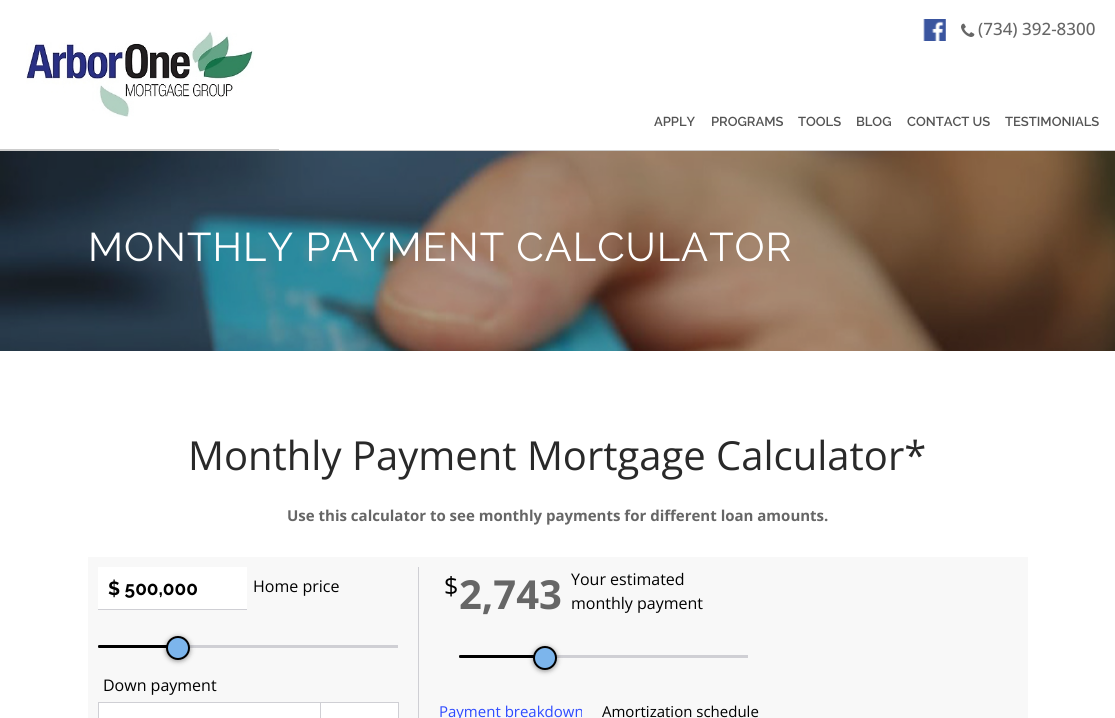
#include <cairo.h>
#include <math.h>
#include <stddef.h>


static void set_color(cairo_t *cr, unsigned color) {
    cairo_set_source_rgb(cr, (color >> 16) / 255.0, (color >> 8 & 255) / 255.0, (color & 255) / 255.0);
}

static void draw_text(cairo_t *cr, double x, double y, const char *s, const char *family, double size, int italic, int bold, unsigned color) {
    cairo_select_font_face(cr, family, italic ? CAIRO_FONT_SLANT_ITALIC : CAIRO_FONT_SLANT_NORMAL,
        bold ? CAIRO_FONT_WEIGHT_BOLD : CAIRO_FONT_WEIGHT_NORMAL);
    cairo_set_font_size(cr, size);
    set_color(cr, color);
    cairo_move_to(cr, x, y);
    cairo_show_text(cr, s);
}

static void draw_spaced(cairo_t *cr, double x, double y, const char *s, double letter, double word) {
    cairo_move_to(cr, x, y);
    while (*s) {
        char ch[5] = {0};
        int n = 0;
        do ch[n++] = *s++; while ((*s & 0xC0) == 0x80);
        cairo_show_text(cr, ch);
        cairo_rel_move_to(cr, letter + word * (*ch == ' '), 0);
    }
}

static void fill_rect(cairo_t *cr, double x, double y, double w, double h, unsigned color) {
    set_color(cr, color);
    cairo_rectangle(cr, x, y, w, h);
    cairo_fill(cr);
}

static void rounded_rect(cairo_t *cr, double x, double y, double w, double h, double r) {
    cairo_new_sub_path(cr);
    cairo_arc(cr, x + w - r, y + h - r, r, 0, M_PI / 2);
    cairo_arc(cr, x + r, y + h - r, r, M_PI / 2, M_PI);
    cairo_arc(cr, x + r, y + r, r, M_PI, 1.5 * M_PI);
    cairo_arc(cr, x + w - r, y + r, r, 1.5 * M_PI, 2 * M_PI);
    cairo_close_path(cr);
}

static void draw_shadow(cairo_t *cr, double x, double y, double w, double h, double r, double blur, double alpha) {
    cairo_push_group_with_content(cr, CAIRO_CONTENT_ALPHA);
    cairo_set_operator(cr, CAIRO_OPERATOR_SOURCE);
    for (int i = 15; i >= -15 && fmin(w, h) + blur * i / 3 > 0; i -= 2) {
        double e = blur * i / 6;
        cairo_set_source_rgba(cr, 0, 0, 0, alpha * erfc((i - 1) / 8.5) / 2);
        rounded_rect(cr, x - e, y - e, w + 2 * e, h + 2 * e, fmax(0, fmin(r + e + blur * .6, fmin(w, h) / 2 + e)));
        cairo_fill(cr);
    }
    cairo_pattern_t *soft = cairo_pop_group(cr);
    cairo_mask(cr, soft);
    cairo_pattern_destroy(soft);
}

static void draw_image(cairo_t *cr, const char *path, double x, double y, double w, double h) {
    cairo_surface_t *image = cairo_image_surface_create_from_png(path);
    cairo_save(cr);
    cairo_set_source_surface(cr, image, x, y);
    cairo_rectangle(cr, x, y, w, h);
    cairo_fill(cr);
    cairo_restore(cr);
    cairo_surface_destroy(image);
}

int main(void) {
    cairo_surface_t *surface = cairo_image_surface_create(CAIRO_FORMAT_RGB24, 1115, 718);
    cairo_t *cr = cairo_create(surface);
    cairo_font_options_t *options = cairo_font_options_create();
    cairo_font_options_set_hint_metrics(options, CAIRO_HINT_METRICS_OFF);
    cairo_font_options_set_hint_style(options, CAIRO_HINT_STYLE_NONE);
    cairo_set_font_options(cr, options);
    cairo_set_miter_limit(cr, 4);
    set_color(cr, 0xFFFFFF);
    cairo_paint(cr);
    fill_rect(cr, 0, 150, 1115, 1, 0xCCCCCC);
    fill_rect(cr, 0, 149, 279, 1, 0xCCCCCC);
    draw_image(cr, "assets/img1.png", 26, 31, 228, 86);
    draw_image(cr, "assets/img2.png", 923, 19, 23, 22);
    draw_image(cr, "assets/img3.png", 961, 23, 14, 14);
    draw_text(cr, 978, 35, "(734) 392-8300", "Open Sans Medium", 17, 0, 0, 0x666666);
    draw_text(cr, 654, 126, "APPLY", "Raleway SemiBold", 13, 0, 0, 0x545454);
    draw_text(cr, 711, 126, "PROGRAMS", "Raleway SemiBold", 13, 0, 0, 0x545454);
    draw_text(cr, 798, 126, "TOOLS", "Raleway SemiBold", 13, 0, 0, 0x545454);
    draw_text(cr, 856, 126, "BLOG", "Raleway SemiBold", 13, 0, 0, 0x545454);
    draw_text(cr, 907, 126, "CONTACT US", "Raleway SemiBold", 13, 0, 0, 0x545454);
    draw_text(cr, 1005, 126, "TESTIMONIALS", "Raleway SemiBold", 13, 0, 0, 0x545454);
    draw_image(cr, "assets/img4.png", 0, 151, 1115, 200);
    cairo_select_font_face(cr, "Raleway", CAIRO_FONT_SLANT_NORMAL, CAIRO_FONT_WEIGHT_NORMAL);
    cairo_set_font_size(cr, 40);
    set_color(cr, 0xFFFFFF);
    draw_spaced(cr, 88, 261, "MONTHLY PAYMENT CALCULATOR", 1, 0);
    draw_text(cr, 188, 470, "Monthly Payment Mortgage Calculator*", "Open Sans", 40, 0, 0, 0x292929);
    draw_text(cr, 287, 521, "Use this calculator to see monthly payments for different loan amounts.", "Open Sans", 15, 0, 1, 0x666666);
    fill_rect(cr, 88, 557, 940, 161, 0xF8F8F8);
    fill_rect(cr, 418, 567, 1, 151, 0xCFCFD4);
    fill_rect(cr, 98, 567, 149, 42, 0xFFFFFF);
    fill_rect(cr, 98, 609, 149, 1, 0xCFCFD4);
    draw_text(cr, 108, 595, "$ 500,000", "Raleway", 19, 0, 1, 0x000000);
    draw_text(cr, 253, 592, "Home price", "Open Sans", 16, 0, 0, 0x000000);
    fill_rect(cr, 98, 645, 300, 3, 0xCFCFD4);
    set_color(cr, 0x000000);
    cairo_new_path(cr);
    cairo_move_to(cr, 99.5, 645);
    cairo_line_to(cr, 173, 645);
    cairo_line_to(cr, 173, 648);
    cairo_line_to(cr, 99.5, 648);
    cairo_curve_to(cr, 98.5, 648, 98, 647.5, 98, 646.5);
    cairo_curve_to(cr, 98, 645.5, 98.5, 645, 99.5, 645);
    cairo_close_path(cr);
    cairo_fill(cr);
    set_color(cr, 0x000000);
    draw_shadow(cr, 166, 637, 24, 24, 12, 2.5, 0.42);
    set_color(cr, 0x7CB5EC);
    cairo_arc(cr, 178, 648, 11, 0, 2 * M_PI);
    cairo_fill_preserve(cr);
    set_color(cr, 0x000000);
    cairo_stroke(cr);
    draw_text(cr, 103, 691, "Down payment", "Open Sans", 16, 0, 0, 0x000000);
    set_color(cr, 0xFFFFFF);
    cairo_rectangle(cr, 98.5, 702.5, 222, 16);
    cairo_fill_preserve(cr);
    set_color(cr, 0xCFCFD4);
    cairo_set_line_width(cr, 1);
    cairo_stroke(cr);
    set_color(cr, 0xFFFFFF);
    cairo_rectangle(cr, 320.5, 702.5, 78, 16);
    cairo_fill_preserve(cr);
    set_color(cr, 0xCFCFD4);
    cairo_stroke(cr);
    draw_text(cr, 444, 595, "$", "Open Sans", 25, 0, 0, 0x000000);
    draw_text(cr, 459, 609, "2,743", "Open Sans", 40, 0, 1, 0x666666);
    draw_text(cr, 571, 585, "Your estimated", "Open Sans", 16, 0, 0, 0x000000);
    draw_text(cr, 571, 609, "monthly payment", "Open Sans", 16, 0, 0, 0x000000);
    fill_rect(cr, 459, 655, 289, 3, 0xCFCFD4);
    set_color(cr, 0x000000);
    cairo_new_path(cr);
    cairo_move_to(cr, 460.5, 655);
    cairo_line_to(cr, 540, 655);
    cairo_line_to(cr, 540, 658);
    cairo_line_to(cr, 460.5, 658);
    cairo_curve_to(cr, 459.5, 658, 459, 657.5, 459, 656.5);
    cairo_curve_to(cr, 459, 655.5, 459.5, 655, 460.5, 655);
    cairo_close_path(cr);
    cairo_fill(cr);
    set_color(cr, 0x000000);
    draw_shadow(cr, 533, 647, 24, 24, 12, 2.5, 0.42);
    set_color(cr, 0x7CB5EC);
    cairo_arc(cr, 545, 658, 11, 0, 2 * M_PI);
    cairo_fill_preserve(cr);
    set_color(cr, 0x000000);
    cairo_set_line_width(cr, 2);
    cairo_stroke(cr);
    draw_text(cr, 439, 717, "Payment breakdown", "Open Sans", 15, 0, 0, 0x2E4AFF);
    draw_text(cr, 602, 717, "Amortization schedule", "Open Sans", 15, 0, 0, 0x000000);
    cairo_surface_write_to_png(surface, "output.png");
    cairo_font_options_destroy(options);
    cairo_destroy(cr);
    cairo_surface_destroy(surface);
    return 0;
}
